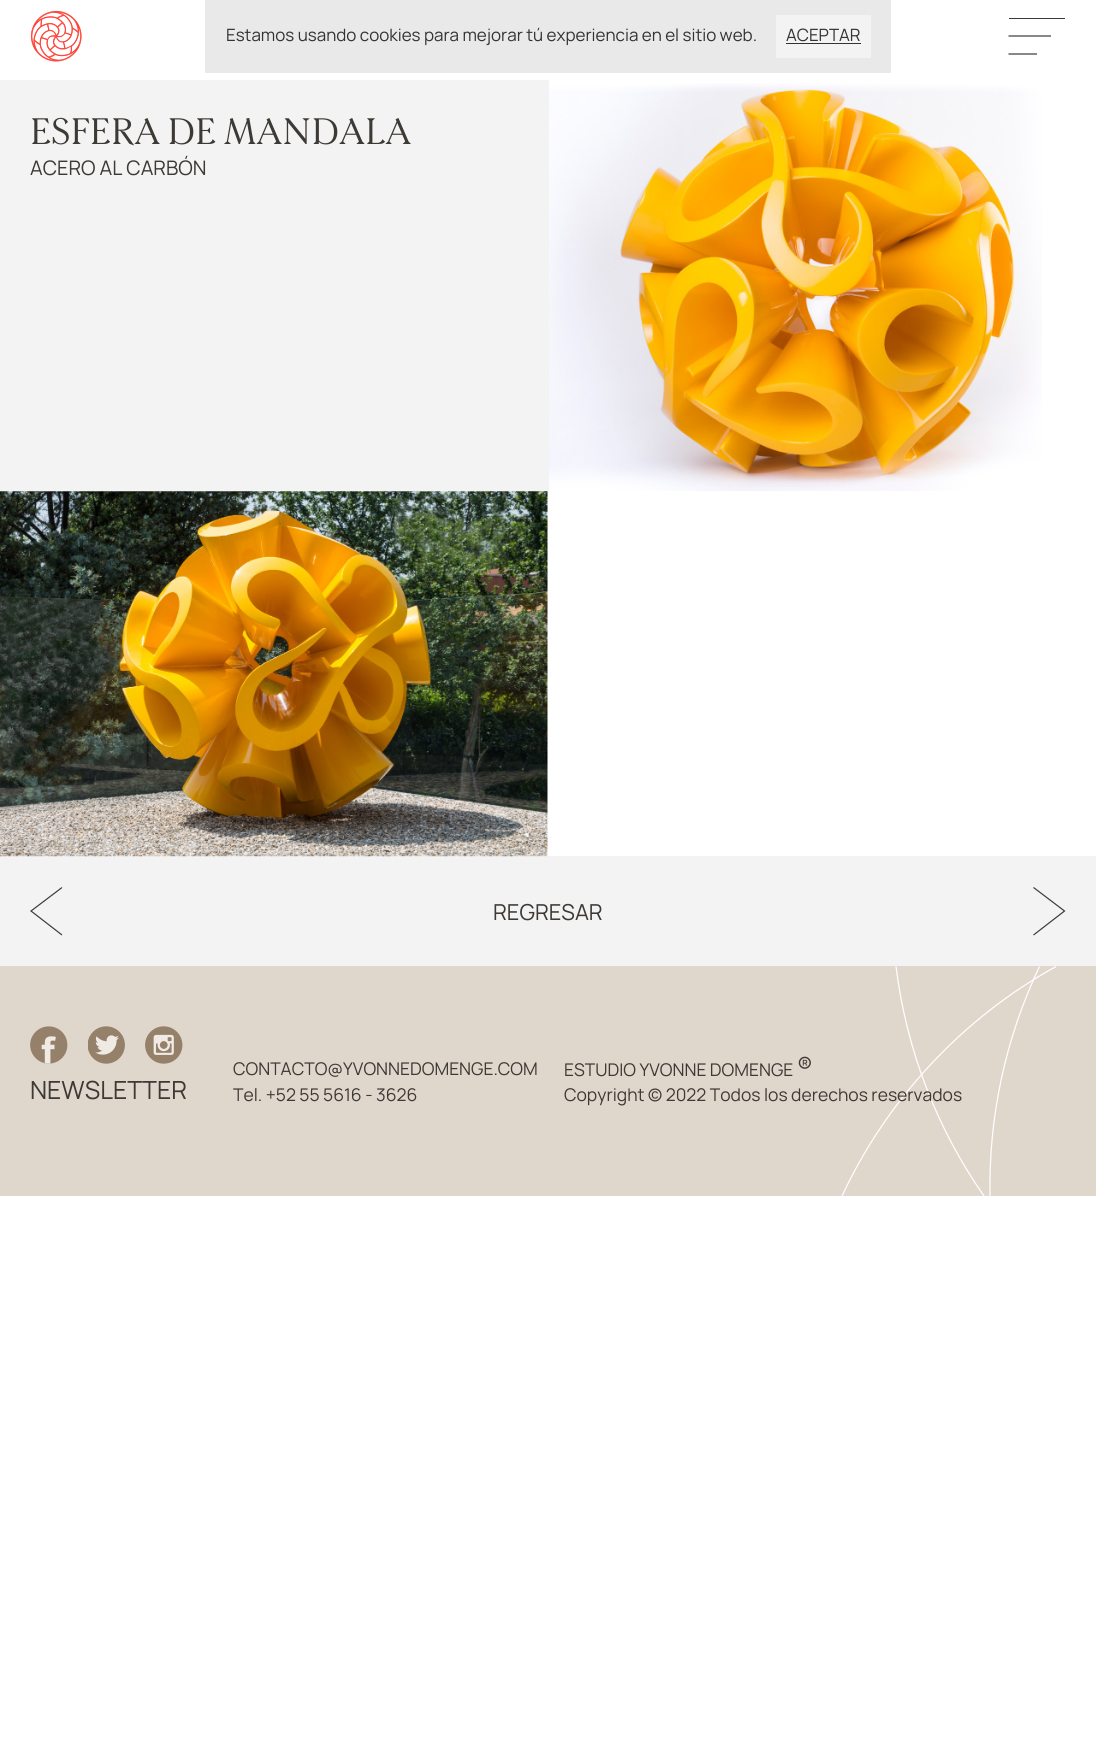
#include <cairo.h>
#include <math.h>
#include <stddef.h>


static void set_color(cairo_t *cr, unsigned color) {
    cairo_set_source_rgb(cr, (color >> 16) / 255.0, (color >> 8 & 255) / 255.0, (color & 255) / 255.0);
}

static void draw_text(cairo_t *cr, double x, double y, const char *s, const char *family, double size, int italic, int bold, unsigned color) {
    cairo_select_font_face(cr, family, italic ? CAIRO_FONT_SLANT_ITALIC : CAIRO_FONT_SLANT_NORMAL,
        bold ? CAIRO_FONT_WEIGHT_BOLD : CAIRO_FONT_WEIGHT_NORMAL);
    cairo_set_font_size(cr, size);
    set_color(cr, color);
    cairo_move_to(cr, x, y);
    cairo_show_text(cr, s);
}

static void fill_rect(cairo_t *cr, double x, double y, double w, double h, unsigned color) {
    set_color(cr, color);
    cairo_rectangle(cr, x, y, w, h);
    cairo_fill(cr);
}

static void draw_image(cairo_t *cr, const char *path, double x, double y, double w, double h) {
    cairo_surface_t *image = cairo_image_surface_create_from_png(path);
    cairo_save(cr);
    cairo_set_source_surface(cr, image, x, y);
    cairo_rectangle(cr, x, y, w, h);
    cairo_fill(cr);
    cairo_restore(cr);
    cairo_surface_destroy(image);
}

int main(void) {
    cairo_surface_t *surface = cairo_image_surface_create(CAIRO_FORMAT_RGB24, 1096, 1741);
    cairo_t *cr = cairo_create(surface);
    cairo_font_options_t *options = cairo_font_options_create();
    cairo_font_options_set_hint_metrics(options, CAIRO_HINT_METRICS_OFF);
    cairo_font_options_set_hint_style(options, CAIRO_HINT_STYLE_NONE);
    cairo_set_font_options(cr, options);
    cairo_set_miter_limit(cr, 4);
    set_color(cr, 0xFFFFFF);
    cairo_paint(cr);
    fill_rect(cr, 205, 0, 686, 73, 0xE9E9E9);
    draw_text(cr, 226, 41, "Estamos usando cookies para mejorar tú experiencia en el sitio web.", "Manrope", 17, 0, 0, 0x333333);
    fill_rect(cr, 776, 15, 95, 43, 0xF2F3F2);
    draw_text(cr, 786, 41, "ACEPTAR", "Manrope", 17, 0, 0, 0x333333);
    fill_rect(cr, 786, 43, 75, 1, 0x333333);
    draw_image(cr, "assets/img1.png", 30, 10, 52, 52);
    fill_rect(cr, 1009, 18, 56, 1, 0x3D3935);
    cairo_new_path(cr);
    cairo_move_to(cr, 1008.5, 36);
    cairo_line_to(cr, 1051, 36);
    cairo_move_to(cr, 1008.5, 54);
    cairo_line_to(cr, 1037, 54);
    cairo_set_line_width(cr, 1.2);
    cairo_stroke(cr);
    fill_rect(cr, 0, 80, 549, 411, 0xF3F3F3);
    draw_text(cr, 30, 144, "ESFERA DE MANDALA", "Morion", 35, 0, 0, 0x3D3935);
    draw_text(cr, 30, 175, "ACERO AL CARBÓN", "Manrope", 20, 0, 0, 0x3D3935);
    draw_image(cr, "assets/img2.png", 549, 83, 493, 408);
    fill_rect(cr, 0, 856, 1096, 110, 0xF3F3F3);
    draw_image(cr, "assets/img3.png", 0, 491, 548, 366);
    cairo_new_path(cr);
    cairo_move_to(cr, 62, 935);
    cairo_line_to(cr, 31, 911);
    cairo_line_to(cr, 62, 887.5);
    set_color(cr, 0x3D3935);
    cairo_stroke(cr);
    draw_text(cr, 493, 920, "REGRESAR", "Manrope", 22, 0, 0, 0x3D3935);
    cairo_new_path(cr);
    cairo_move_to(cr, 1033.5, 935);
    cairo_line_to(cr, 1064.5, 911);
    cairo_line_to(cr, 1033.5, 887.5);
    cairo_stroke(cr);
    fill_rect(cr, 0, 966, 1096, 230, 0xE0D7CC);
    cairo_new_path(cr);
    cairo_move_to(cr, 896, 966.5);
    cairo_curve_to(cr, 906.5, 1051, 937.5, 1129.5, 984, 1196);
    set_color(cr, 0xFFFFFF);
    cairo_stroke(cr);
    cairo_new_path(cr);
    cairo_move_to(cr, 1056, 966.5);
    cairo_curve_to(cr, 962.5, 1018, 887, 1099.5, 842, 1196);
    cairo_stroke(cr);
    cairo_new_path(cr);
    cairo_move_to(cr, 1039.5, 966.5);
    cairo_curve_to(cr, 1005.5, 1038, 988.5, 1117, 990, 1196);
    cairo_stroke(cr);
    draw_image(cr, "assets/img4.png", 30, 1026, 38, 38);
    draw_image(cr, "assets/img5.png", 88, 1026, 37, 38);
    draw_image(cr, "assets/img6.png", 145, 1026, 38, 38);
    draw_text(cr, 30, 1099, "NEWSLETTER", "Manrope", 25, 0, 0, 0x3D3935);
    draw_text(cr, 233, 1075, "CONTACTO@YVONNEDOMENGE.COM", "Manrope", 17.5, 0, 0, 0x3D3935);
    draw_text(cr, 233, 1101, "Tel. +52 55 5616 - 3626", "Manrope", 17.5, 0, 0, 0x3D3935);
    draw_text(cr, 564, 1076, "ESTUDIO YVONNE DOMENGE", "Manrope", 17.5, 0, 0, 0x3D3935);
    draw_text(cr, 797, 1076, "®", "Manrope", 25, 0, 0, 0x3D3935);
    draw_text(cr, 564, 1101, "Copyright © 2022 Todos los derechos reservados", "Manrope", 17.5, 0, 0, 0x3D3935);
    cairo_surface_write_to_png(surface, "output.png");
    cairo_font_options_destroy(options);
    cairo_destroy(cr);
    cairo_surface_destroy(surface);
    return 0;
}
